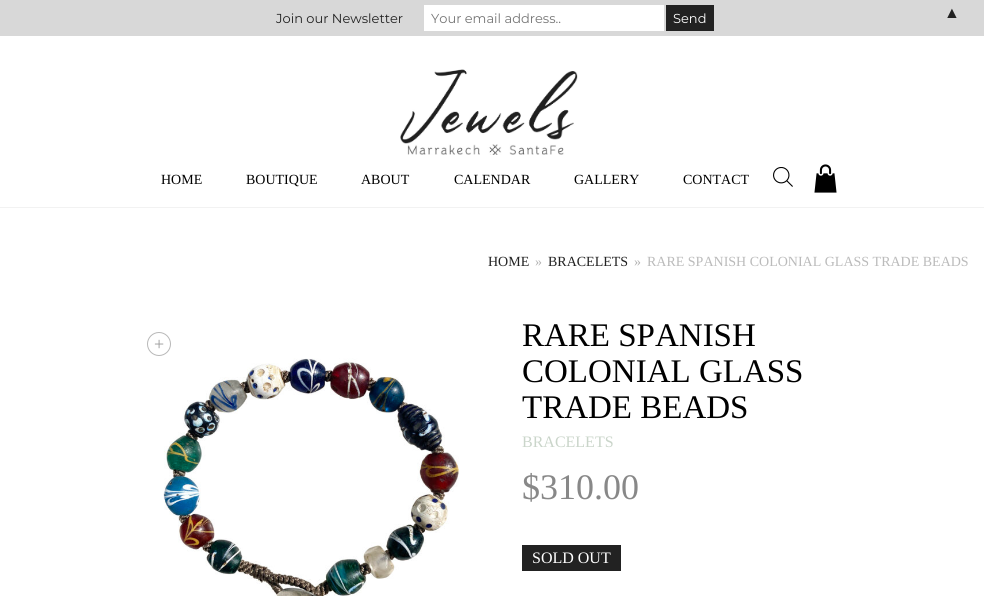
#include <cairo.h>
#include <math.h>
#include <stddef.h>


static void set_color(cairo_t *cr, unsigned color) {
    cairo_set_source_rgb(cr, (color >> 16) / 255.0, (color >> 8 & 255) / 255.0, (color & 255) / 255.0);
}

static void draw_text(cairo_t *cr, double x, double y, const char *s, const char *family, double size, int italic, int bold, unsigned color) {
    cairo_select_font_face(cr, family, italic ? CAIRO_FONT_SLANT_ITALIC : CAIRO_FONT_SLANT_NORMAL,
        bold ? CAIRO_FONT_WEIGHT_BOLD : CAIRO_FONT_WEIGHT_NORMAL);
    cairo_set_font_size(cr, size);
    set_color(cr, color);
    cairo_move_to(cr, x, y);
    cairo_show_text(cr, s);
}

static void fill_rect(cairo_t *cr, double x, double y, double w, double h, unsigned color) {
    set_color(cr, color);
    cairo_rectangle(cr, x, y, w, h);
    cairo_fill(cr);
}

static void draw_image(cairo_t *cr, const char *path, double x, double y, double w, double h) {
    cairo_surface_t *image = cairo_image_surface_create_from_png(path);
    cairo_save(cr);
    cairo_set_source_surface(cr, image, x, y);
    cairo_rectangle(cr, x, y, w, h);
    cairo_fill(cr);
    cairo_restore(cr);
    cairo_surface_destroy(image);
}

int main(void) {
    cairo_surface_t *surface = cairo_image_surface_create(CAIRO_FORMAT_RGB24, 984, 596);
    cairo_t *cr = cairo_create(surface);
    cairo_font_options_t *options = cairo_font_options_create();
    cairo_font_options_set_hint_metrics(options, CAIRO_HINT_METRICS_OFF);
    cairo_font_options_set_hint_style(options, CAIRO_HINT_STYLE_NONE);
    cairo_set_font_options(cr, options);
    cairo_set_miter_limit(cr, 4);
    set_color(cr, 0xFFFFFF);
    cairo_paint(cr);
    fill_rect(cr, 0, 0, 984, 36, 0xD8D8D8);
    draw_text(cr, 276, 23, "Join our Newsletter", "Montserrat", 13, 0, 0, 0x222222);
    fill_rect(cr, 424, 5, 240, 26, 0xFFFFFF);
    draw_text(cr, 431, 23, "Your email address..", "Montserrat", 13, 0, 0, 0x757575);
    fill_rect(cr, 666, 5, 48, 26, 0x222222);
    draw_text(cr, 673, 23, "Send", "Montserrat", 13, 0, 0, 0xFFFFFF);
    draw_text(cr, 944, 18, "▲", "Liberation Serif", 16, 0, 0, 0x222222);
    fill_rect(cr, 0, 207, 984, 1, 0xF2F2F2);
    draw_image(cr, "assets/img1.png", 400, 69, 178, 86);
    draw_text(cr, 161, 184, "HOME", "Liberation Serif", 14, 0, 0, 0x000000);
    draw_text(cr, 246, 184, "BOUTIQUE", "Liberation Serif", 14, 0, 0, 0x000000);
    draw_text(cr, 361, 184, "ABOUT", "Liberation Serif", 14, 0, 0, 0x000000);
    draw_text(cr, 454, 184, "CALENDAR", "Liberation Serif", 14, 0, 0, 0x000000);
    draw_text(cr, 574, 184, "GALLERY", "Liberation Serif", 14, 0, 0, 0x000000);
    draw_text(cr, 683, 184, "CONTACT", "Liberation Serif", 14, 0, 0, 0x000000);
    draw_image(cr, "assets/img2.png", 773, 167, 20, 20);
    draw_image(cr, "assets/img3.png", 814, 164, 23, 29);
    draw_text(cr, 488, 266, "HOME", "Liberation Serif", 14, 0, 0, 0x222222);
    draw_text(cr, 535, 266, "»", "Liberation Serif", 14, 0, 0, 0xB3B3B3);
    draw_text(cr, 548, 266, "BRACELETS", "Liberation Serif", 14, 0, 0, 0x222222);
    draw_text(cr, 634, 266, "»", "Liberation Serif", 14, 0, 0, 0xB3B3B3);
    draw_text(cr, 647, 266, "RARE SPANISH COLONIAL GLASS TRADE BEADS", "Liberation Serif", 14, 0, 0, 0xBBBBBB);
    cairo_new_path(cr);
    cairo_arc(cr, 159, 344, 11.5, 0, 2 * M_PI);
    set_color(cr, 0xB8B8B8);
    cairo_set_line_width(cr, 1);
    cairo_stroke(cr);
    draw_text(cr, 154, 350, "+", "Liberation Serif", 18, 0, 0, 0x999999);
    draw_image(cr, "assets/img4.png", 163, 358, 296, 238);
    draw_text(cr, 522, 346, "RARE SPANISH", "Liberation Serif", 33, 0, 0, 0x000000);
    draw_text(cr, 522, 382, "COLONIAL GLASS", "Liberation Serif", 33, 0, 0, 0x000000);
    draw_text(cr, 522, 418, "TRADE BEADS", "Liberation Serif", 33, 0, 0, 0x000000);
    draw_text(cr, 522, 447, "BRACELETS", "Liberation Serif", 16, 0, 0, 0xCAD5CA);
    draw_text(cr, 522, 499, "$310.00", "Liberation Serif", 36, 0, 0, 0x888888);
    fill_rect(cr, 522, 545, 99, 26, 0x222222);
    draw_text(cr, 532, 563, "SOLD OUT", "Liberation Serif", 16, 0, 0, 0xFFFFFF);
    cairo_surface_write_to_png(surface, "output.png");
    cairo_font_options_destroy(options);
    cairo_destroy(cr);
    cairo_surface_destroy(surface);
    return 0;
}
